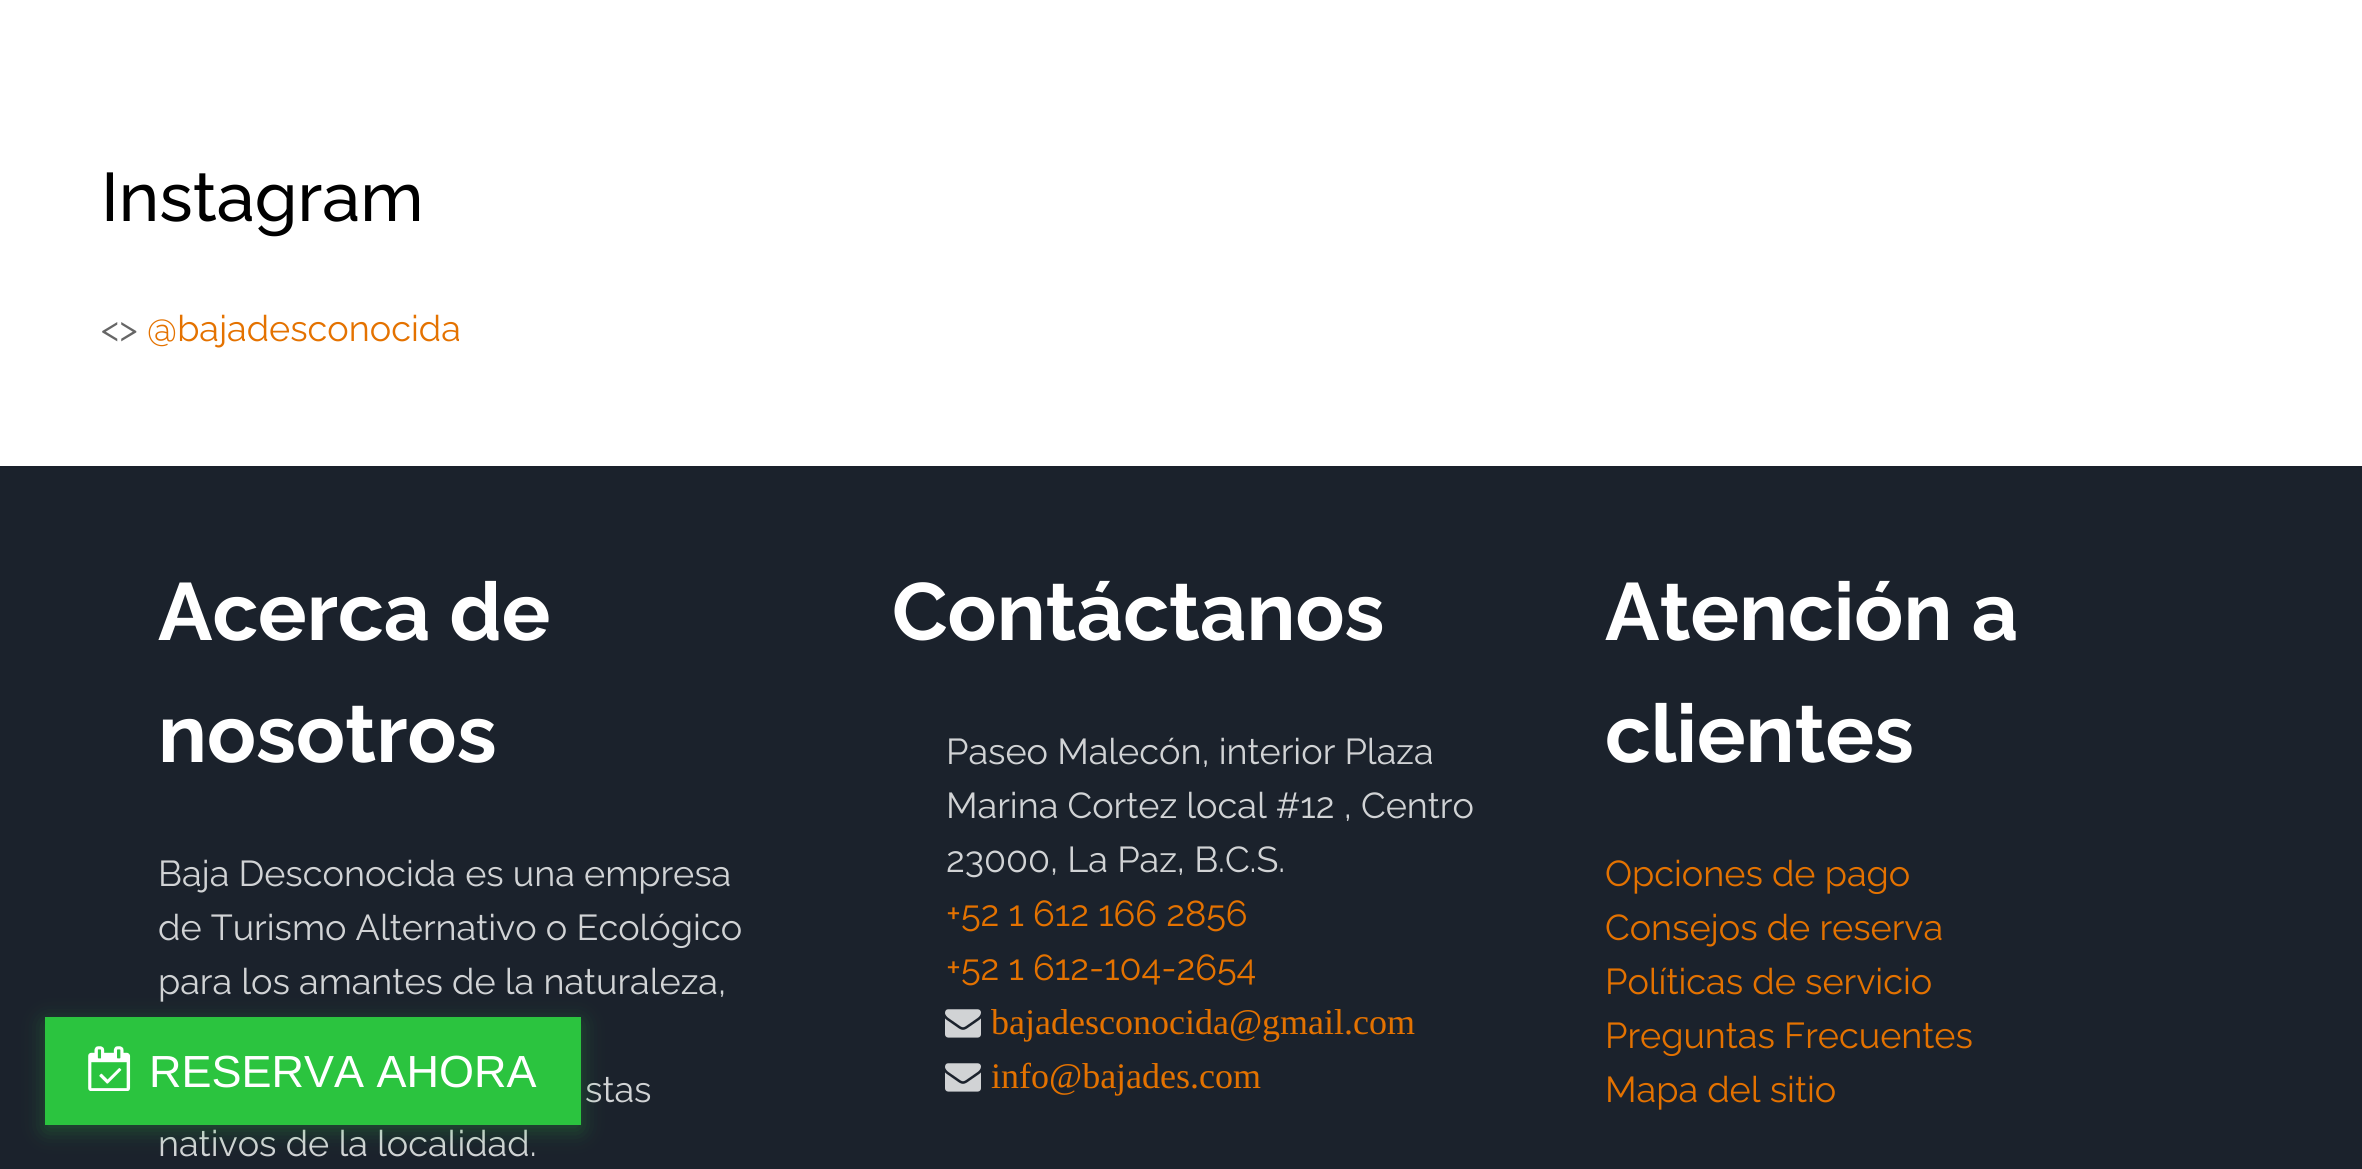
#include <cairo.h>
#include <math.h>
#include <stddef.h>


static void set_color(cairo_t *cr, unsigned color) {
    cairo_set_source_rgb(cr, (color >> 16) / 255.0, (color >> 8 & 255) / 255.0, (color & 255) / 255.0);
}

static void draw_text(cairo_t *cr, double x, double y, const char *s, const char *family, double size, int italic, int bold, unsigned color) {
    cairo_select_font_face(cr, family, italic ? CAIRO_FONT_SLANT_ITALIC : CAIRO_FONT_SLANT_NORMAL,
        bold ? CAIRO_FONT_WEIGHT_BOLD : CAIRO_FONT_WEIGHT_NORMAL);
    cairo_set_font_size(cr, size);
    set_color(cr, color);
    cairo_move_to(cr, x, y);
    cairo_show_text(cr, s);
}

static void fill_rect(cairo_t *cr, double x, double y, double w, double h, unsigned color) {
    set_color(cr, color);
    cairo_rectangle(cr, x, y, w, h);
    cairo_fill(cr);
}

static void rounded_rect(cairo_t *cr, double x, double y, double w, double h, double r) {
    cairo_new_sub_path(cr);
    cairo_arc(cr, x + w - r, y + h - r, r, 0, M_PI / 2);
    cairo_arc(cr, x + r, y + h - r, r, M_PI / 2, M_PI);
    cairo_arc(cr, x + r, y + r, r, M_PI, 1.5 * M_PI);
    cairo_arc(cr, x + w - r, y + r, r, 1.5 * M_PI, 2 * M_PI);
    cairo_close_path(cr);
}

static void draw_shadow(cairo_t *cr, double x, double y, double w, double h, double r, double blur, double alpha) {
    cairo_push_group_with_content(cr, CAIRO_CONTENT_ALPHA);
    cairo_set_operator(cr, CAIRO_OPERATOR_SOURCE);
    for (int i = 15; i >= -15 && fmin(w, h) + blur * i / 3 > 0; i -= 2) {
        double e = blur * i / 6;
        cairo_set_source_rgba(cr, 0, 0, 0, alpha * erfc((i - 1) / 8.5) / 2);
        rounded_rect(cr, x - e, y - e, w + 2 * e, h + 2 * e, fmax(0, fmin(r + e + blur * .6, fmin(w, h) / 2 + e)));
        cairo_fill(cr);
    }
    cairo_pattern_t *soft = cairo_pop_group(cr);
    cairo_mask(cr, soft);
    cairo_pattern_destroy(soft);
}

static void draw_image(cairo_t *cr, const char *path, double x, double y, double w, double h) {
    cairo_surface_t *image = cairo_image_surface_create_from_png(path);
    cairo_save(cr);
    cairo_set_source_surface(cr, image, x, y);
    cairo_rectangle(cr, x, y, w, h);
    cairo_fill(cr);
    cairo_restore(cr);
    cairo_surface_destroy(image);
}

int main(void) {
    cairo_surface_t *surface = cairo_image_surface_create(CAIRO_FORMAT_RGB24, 2362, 1169);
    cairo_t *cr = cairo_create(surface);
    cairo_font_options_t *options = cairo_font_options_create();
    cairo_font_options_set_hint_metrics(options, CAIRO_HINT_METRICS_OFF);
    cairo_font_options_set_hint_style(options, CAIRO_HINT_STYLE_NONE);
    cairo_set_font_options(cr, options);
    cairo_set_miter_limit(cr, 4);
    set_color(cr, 0xFFFFFF);
    cairo_paint(cr);
    draw_text(cr, 101, 221, "Instagram", "Raleway Medium", 68.5, 0, 0, 0x000000);
    draw_text(cr, 101, 341, "<>", "Raleway", 36, 0, 0, 0x666666);
    draw_text(cr, 147, 341, "@bajadesconocida", "Raleway", 36, 0, 0, 0xE47200);
    fill_rect(cr, 0, 468, 2362, 701, 0x1B222C);
    fill_rect(cr, 0, 466, 2362, 2, 0x1A202A);
    draw_text(cr, 158, 640, "Acerca de", "Raleway", 81, 0, 1, 0xFFFFFF);
    draw_text(cr, 158, 762, "nosotros", "Raleway", 81, 0, 1, 0xFFFFFF);
    draw_text(cr, 158, 886, "Baja Desconocida es una empresa", "Raleway", 36, 0, 0, 0xD1D3D5);
    draw_text(cr, 158, 940, "de Turismo Alternativo o Ecológico", "Raleway", 36, 0, 0, 0xD1D3D5);
    draw_text(cr, 158, 994, "para los amantes de la naturaleza,", "Raleway", 36, 0, 0, 0xD1D3D5);
    draw_text(cr, 585, 1102, "stas", "Raleway", 36, 0, 0, 0xD1D3D5);
    draw_text(cr, 158, 1156, "nativos de la localidad.", "Raleway", 36, 0, 0, 0xD1D3D5);
    draw_text(cr, 892, 640, "Contáctanos", "Raleway", 81, 0, 1, 0xFFFFFF);
    draw_text(cr, 946, 764, "Paseo Malecón, interior Plaza", "Raleway", 36, 0, 0, 0xD1D3D5);
    draw_text(cr, 946, 818, "Marina Cortez local #12 , Centro", "Raleway", 36, 0, 0, 0xD1D3D5);
    draw_text(cr, 946, 872, "23000, La Paz, B.C.S.", "Raleway", 36, 0, 0, 0xD1D3D5);
    draw_text(cr, 946, 926, "+52 1 612 166 2856", "Raleway", 36, 0, 0, 0xE47200);
    draw_text(cr, 946, 980, "+52 1 612-104-2654", "Raleway", 36, 0, 0, 0xE47200);
    draw_image(cr, "assets/img1.png", 945, 1009, 36, 29);
    draw_text(cr, 991, 1034, "bajadesconocida@gmail.com", "Liberation Serif", 36, 0, 0, 0xE47200);
    draw_image(cr, "assets/img1.png", 945, 1063, 36, 29);
    draw_text(cr, 991, 1088, "info@bajades.com", "Liberation Serif", 36, 0, 0, 0xE47200);
    draw_text(cr, 1605, 640, "Atención a", "Raleway", 81, 0, 1, 0xFFFFFF);
    draw_text(cr, 1605, 762, "clientes", "Raleway", 81, 0, 1, 0xFFFFFF);
    draw_text(cr, 1605, 886, "Opciones de pago", "Raleway", 36, 0, 0, 0xE47200);
    draw_text(cr, 1605, 940, "Consejos de reserva", "Raleway", 36, 0, 0, 0xE47200);
    draw_text(cr, 1605, 994, "Políticas de servicio", "Raleway", 36, 0, 0, 0xE47200);
    draw_text(cr, 1605, 1048, "Preguntas Frecuentes", "Raleway", 36, 0, 0, 0xE47200);
    draw_text(cr, 1605, 1102, "Mapa del sitio", "Raleway", 36, 0, 0, 0xE47200);
    set_color(cr, 0x2BC43F);
    draw_shadow(cr, 45, 1022, 536, 108, 0, 11, 0.3);
    fill_rect(cr, 45, 1017, 536, 108, 0x2BC43F);
    draw_image(cr, "assets/img2.png", 88, 1046, 43, 45);
    draw_text(cr, 149, 1087, "RESERVA AHORA", "Liberation Sans", 45, 0, 0, 0xFFFFFF);
    cairo_surface_write_to_png(surface, "output.png");
    cairo_font_options_destroy(options);
    cairo_destroy(cr);
    cairo_surface_destroy(surface);
    return 0;
}
